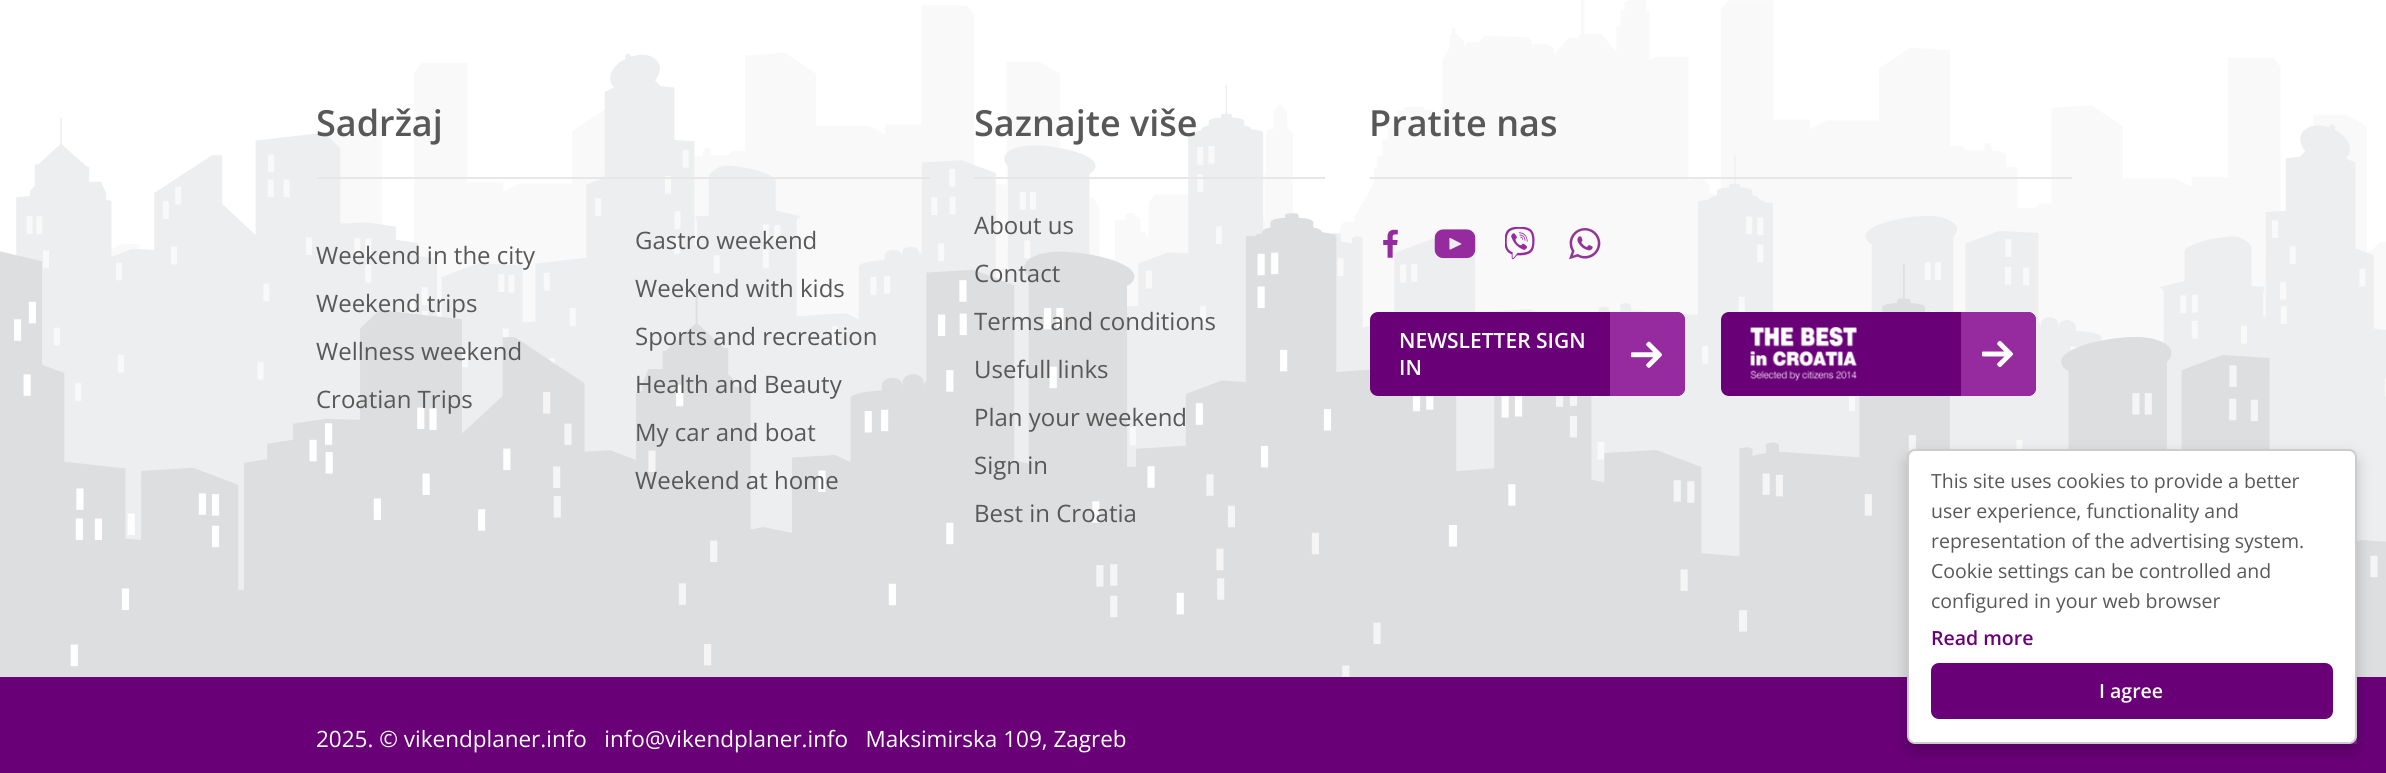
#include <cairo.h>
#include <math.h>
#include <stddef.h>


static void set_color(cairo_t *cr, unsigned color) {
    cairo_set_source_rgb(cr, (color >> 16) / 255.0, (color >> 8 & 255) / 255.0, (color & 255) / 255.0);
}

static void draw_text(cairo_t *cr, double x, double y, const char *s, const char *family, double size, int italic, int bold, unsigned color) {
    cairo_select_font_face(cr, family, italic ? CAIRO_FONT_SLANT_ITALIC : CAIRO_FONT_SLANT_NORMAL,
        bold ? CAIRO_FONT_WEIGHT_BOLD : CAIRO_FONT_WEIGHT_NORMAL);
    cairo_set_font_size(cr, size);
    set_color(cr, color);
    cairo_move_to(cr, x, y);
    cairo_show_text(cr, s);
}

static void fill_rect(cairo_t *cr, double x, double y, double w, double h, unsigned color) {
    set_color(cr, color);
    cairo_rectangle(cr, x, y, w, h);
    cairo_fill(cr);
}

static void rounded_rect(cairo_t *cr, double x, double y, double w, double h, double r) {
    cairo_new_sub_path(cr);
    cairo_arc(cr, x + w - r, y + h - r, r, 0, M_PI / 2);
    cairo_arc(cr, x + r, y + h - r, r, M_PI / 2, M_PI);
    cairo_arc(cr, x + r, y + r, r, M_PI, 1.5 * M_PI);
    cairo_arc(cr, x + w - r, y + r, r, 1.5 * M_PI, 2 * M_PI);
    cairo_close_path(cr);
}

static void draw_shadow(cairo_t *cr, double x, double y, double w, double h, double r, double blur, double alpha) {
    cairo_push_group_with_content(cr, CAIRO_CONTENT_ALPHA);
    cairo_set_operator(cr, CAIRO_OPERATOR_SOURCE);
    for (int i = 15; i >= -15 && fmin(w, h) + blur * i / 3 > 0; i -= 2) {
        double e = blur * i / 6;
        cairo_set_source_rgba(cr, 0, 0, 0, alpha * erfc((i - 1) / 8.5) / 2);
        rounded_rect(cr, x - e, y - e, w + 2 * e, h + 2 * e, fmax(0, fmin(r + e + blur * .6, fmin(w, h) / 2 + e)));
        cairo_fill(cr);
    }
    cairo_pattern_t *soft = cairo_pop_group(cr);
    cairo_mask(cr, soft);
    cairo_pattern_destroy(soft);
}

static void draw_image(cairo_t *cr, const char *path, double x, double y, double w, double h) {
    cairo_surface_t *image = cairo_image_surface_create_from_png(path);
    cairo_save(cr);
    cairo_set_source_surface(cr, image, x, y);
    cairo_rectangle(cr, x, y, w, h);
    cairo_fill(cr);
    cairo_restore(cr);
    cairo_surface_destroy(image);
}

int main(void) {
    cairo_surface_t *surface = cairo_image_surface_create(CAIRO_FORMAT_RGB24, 2386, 773);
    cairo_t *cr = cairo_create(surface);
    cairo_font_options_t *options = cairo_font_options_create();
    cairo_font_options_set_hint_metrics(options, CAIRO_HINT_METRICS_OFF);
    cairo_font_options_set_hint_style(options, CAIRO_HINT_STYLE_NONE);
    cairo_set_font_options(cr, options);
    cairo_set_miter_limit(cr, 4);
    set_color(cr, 0xFFFFFF);
    cairo_paint(cr);
    draw_image(cr, "assets/img1.png", 0, 0, 2386, 677);
    fill_rect(cr, 317, 177, 613, 2, 0xE7E7E7);
    draw_text(cr, 316, 136, "Sadržaj", "Open Sans SemiBold", 36, 0, 0, 0x585858);
    draw_text(cr, 316, 264, "Weekend in the city", "Open Sans", 24, 0, 0, 0x585858);
    draw_text(cr, 316, 312, "Weekend trips", "Open Sans", 24, 0, 0, 0x585858);
    draw_text(cr, 316, 360, "Wellness weekend", "Open Sans", 24, 0, 0, 0x585858);
    draw_text(cr, 316, 408, "Croatian Trips", "Open Sans", 24, 0, 0, 0x585858);
    draw_text(cr, 635, 249, "Gastro weekend", "Open Sans", 24, 0, 0, 0x585858);
    draw_text(cr, 635, 297, "Weekend with kids", "Open Sans", 24, 0, 0, 0x585858);
    draw_text(cr, 635, 345, "Sports and recreation", "Open Sans", 24, 0, 0, 0x585858);
    draw_text(cr, 635, 393, "Health and Beauty", "Open Sans", 24, 0, 0, 0x585858);
    draw_text(cr, 635, 441, "My car and boat", "Open Sans", 24, 0, 0, 0x585858);
    draw_text(cr, 635, 489, "Weekend at home", "Open Sans", 24, 0, 0, 0x585858);
    fill_rect(cr, 974, 177, 351, 2, 0xE7E7E7);
    draw_text(cr, 974, 136, "Saznajte više", "Open Sans SemiBold", 36, 0, 0, 0x585858);
    draw_text(cr, 974, 234, "About us", "Open Sans", 24, 0, 0, 0x585858);
    draw_text(cr, 974, 282, "Contact", "Open Sans", 24, 0, 0, 0x585858);
    draw_text(cr, 974, 330, "Terms and conditions", "Open Sans", 24, 0, 0, 0x585858);
    draw_text(cr, 974, 378, "Usefull links", "Open Sans", 24, 0, 0, 0x585858);
    draw_text(cr, 974, 426, "Plan your weekend", "Open Sans", 24, 0, 0, 0x585858);
    draw_text(cr, 974, 474, "Sign in", "Open Sans", 24, 0, 0, 0x585858);
    draw_text(cr, 974, 522, "Best in Croatia", "Open Sans", 24, 0, 0, 0x585858);
    fill_rect(cr, 1370, 177, 702, 2, 0xE7E7E7);
    draw_text(cr, 1369, 136, "Pratite nas", "Open Sans SemiBold", 36, 0, 0, 0x585858);
    draw_image(cr, "assets/img2.png", 1383, 229, 15, 29);
    draw_image(cr, "assets/img3.png", 1434, 229, 42, 30);
    draw_image(cr, "assets/img4.png", 1505, 227, 30, 33);
    draw_image(cr, "assets/img5.png", 1569, 228, 32, 32);
    set_color(cr, 0x6A0078);
    rounded_rect(cr, 1370, 312, 315, 84, 8);
    cairo_fill(cr);
    draw_text(cr, 1399, 348, "NEWSLETTER SIGN", "Open Sans SemiBold", 21, 0, 0, 0xFFFFFF);
    set_color(cr, 0x952B9E);
    cairo_new_path(cr);
    cairo_move_to(cr, 1610, 312);
    cairo_line_to(cr, 1677, 312);
    cairo_curve_to(cr, 1681.5, 312, 1685, 315.5, 1685, 320);
    cairo_line_to(cr, 1685, 388);
    cairo_curve_to(cr, 1685, 392.5, 1681.5, 396, 1677, 396);
    cairo_line_to(cr, 1610, 396);
    cairo_close_path(cr);
    cairo_fill(cr);
    draw_text(cr, 1399, 375, "IN", "Open Sans SemiBold", 21, 0, 0, 0xFFFFFF);
    draw_image(cr, "assets/img6.png", 1631, 341, 31, 27);
    set_color(cr, 0x6A0078);
    rounded_rect(cr, 1721, 312, 315, 84, 8);
    cairo_fill(cr);
    draw_image(cr, "assets/img7.png", 1750, 327, 107, 54);
    set_color(cr, 0x952B9E);
    cairo_new_path(cr);
    cairo_move_to(cr, 1961, 312);
    cairo_line_to(cr, 2028, 312);
    cairo_curve_to(cr, 2032.5, 312, 2036, 315.5, 2036, 320);
    cairo_line_to(cr, 2036, 388);
    cairo_curve_to(cr, 2036, 392.5, 2032.5, 396, 2028, 396);
    cairo_line_to(cr, 1961, 396);
    cairo_close_path(cr);
    cairo_fill(cr);
    draw_image(cr, "assets/img8.png", 1982, 340, 31, 28);
    fill_rect(cr, 0, 677, 2386, 96, 0x6A0078);
    fill_rect(cr, 2349, 736, 8, 8, 0x881E93);
    set_color(cr, 0x000000);
    draw_shadow(cr, 1907, 456, 450, 296, 8, 7.5, 0.2);
    set_color(cr, 0xFFFFFF);
    rounded_rect(cr, 1908, 450, 448, 293, 7);
    cairo_fill_preserve(cr);
    set_color(cr, 0xCCCCCC);
    cairo_stroke(cr);
    draw_text(cr, 1931, 488, "This site uses cookies to provide a better", "Open Sans", 19.5, 0, 0, 0x585858);
    draw_text(cr, 1931, 518, "user experience, functionality and", "Open Sans", 19.5, 0, 0, 0x585858);
    draw_text(cr, 1931, 548, "representation of the advertising system.", "Open Sans", 19.5, 0, 0, 0x585858);
    draw_text(cr, 1931, 578, "Cookie settings can be controlled and", "Open Sans", 19.5, 0, 0, 0x585858);
    draw_text(cr, 1931, 608, "configured in your web browser", "Open Sans", 19.5, 0, 0, 0x585858);
    draw_text(cr, 1931, 645, "Read more", "Open Sans SemiBold", 19.5, 0, 0, 0x6A0078);
    rounded_rect(cr, 1931, 663, 402, 56, 8);
    cairo_fill(cr);
    draw_text(cr, 2099, 698, "I agree", "Open Sans SemiBold", 19.5, 0, 0, 0xFFFFFF);
    draw_text(cr, 316, 747, "2025. © vikendplaner.info   info@vikendplaner.info   Maksimirska 109, Zagreb", "Open Sans", 22.5, 0, 0, 0xFFFFFF);
    cairo_surface_write_to_png(surface, "output.png");
    cairo_font_options_destroy(options);
    cairo_destroy(cr);
    cairo_surface_destroy(surface);
    return 0;
}
